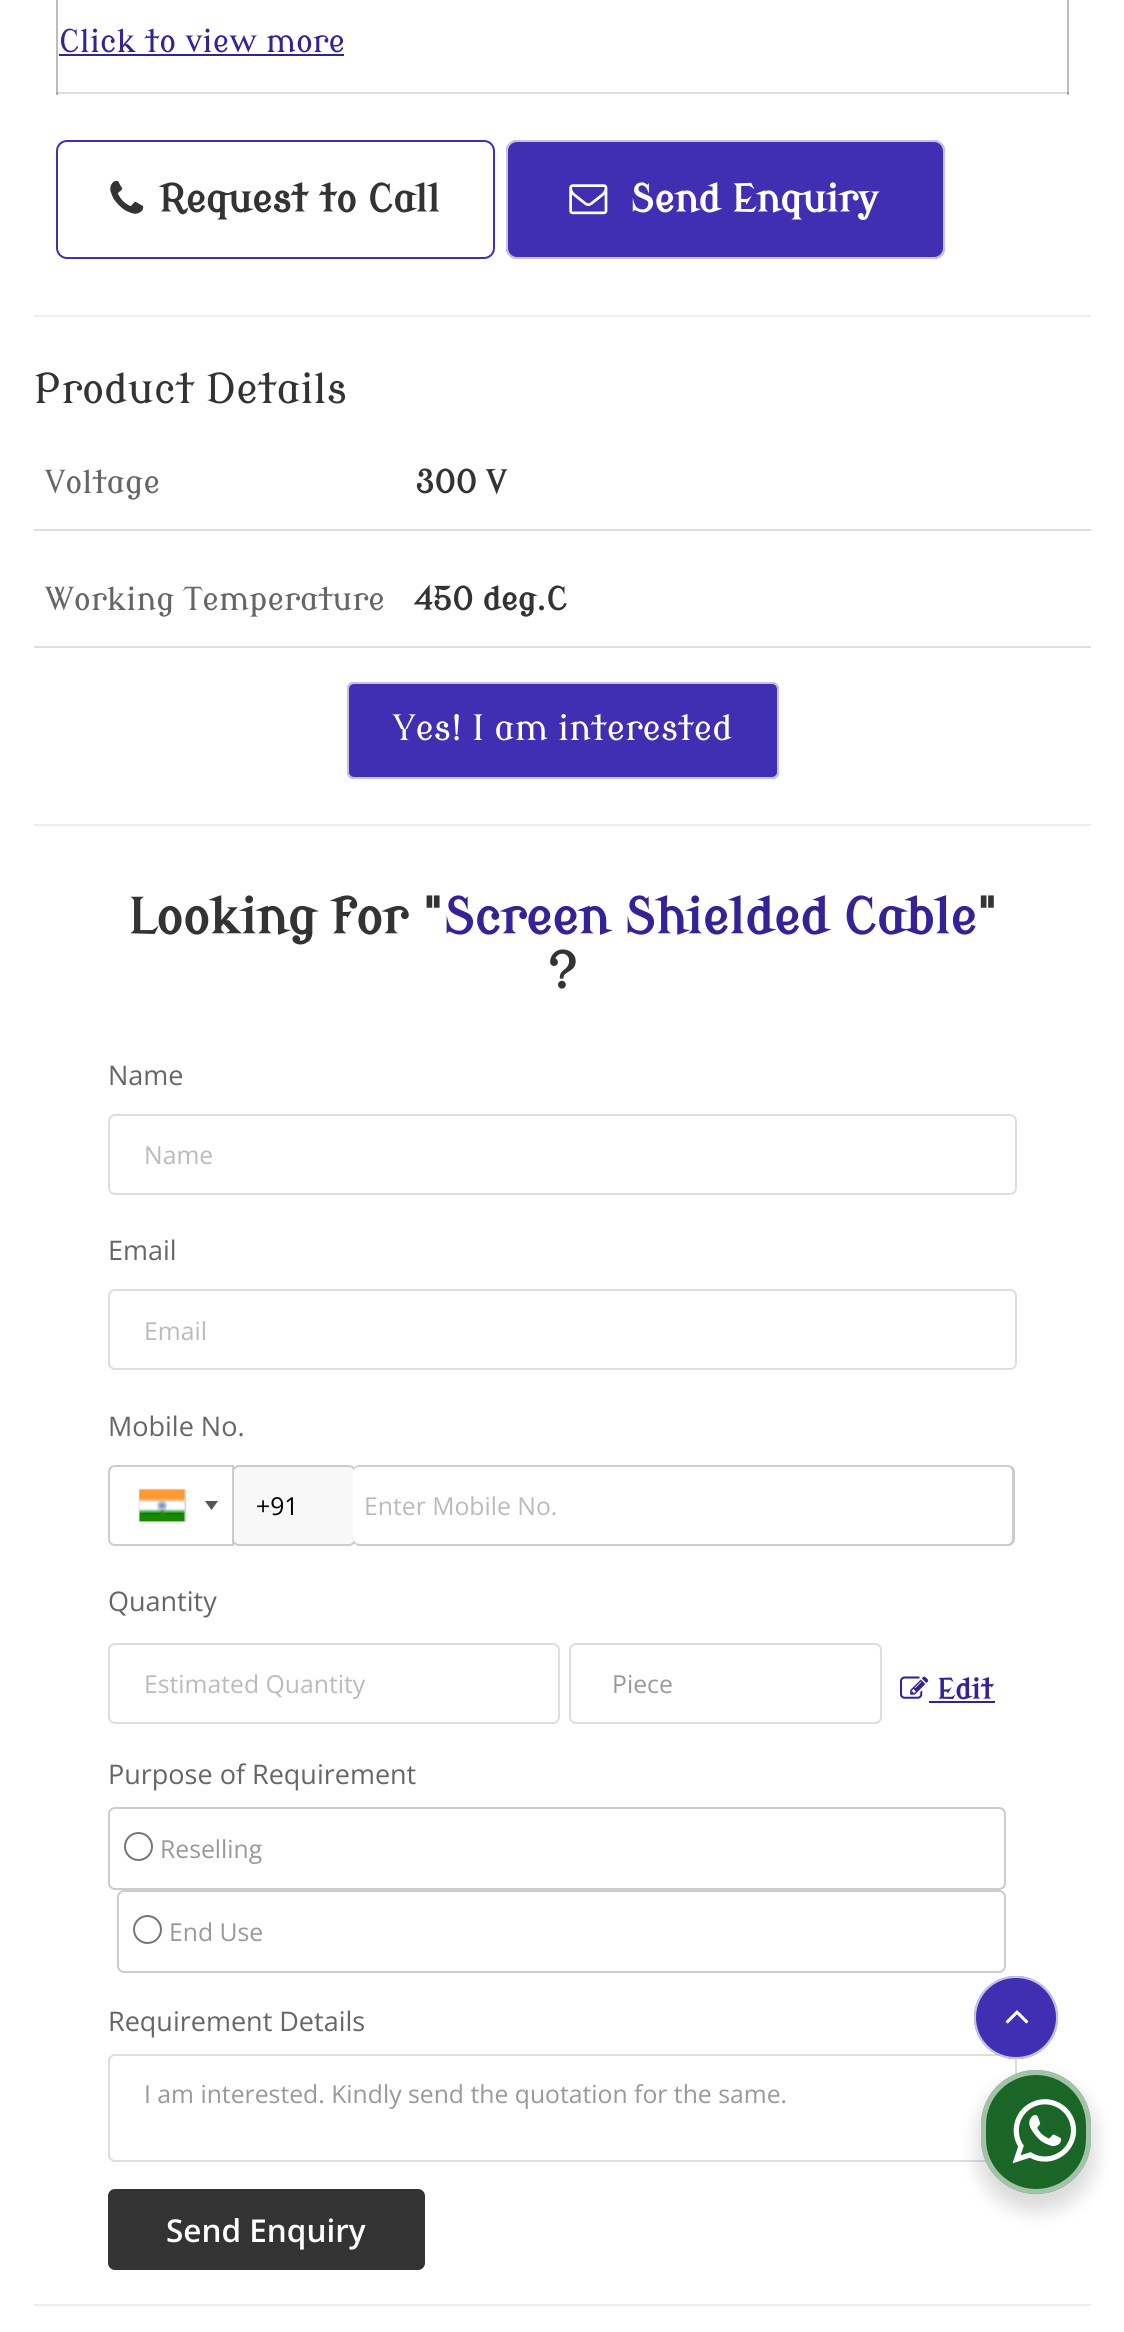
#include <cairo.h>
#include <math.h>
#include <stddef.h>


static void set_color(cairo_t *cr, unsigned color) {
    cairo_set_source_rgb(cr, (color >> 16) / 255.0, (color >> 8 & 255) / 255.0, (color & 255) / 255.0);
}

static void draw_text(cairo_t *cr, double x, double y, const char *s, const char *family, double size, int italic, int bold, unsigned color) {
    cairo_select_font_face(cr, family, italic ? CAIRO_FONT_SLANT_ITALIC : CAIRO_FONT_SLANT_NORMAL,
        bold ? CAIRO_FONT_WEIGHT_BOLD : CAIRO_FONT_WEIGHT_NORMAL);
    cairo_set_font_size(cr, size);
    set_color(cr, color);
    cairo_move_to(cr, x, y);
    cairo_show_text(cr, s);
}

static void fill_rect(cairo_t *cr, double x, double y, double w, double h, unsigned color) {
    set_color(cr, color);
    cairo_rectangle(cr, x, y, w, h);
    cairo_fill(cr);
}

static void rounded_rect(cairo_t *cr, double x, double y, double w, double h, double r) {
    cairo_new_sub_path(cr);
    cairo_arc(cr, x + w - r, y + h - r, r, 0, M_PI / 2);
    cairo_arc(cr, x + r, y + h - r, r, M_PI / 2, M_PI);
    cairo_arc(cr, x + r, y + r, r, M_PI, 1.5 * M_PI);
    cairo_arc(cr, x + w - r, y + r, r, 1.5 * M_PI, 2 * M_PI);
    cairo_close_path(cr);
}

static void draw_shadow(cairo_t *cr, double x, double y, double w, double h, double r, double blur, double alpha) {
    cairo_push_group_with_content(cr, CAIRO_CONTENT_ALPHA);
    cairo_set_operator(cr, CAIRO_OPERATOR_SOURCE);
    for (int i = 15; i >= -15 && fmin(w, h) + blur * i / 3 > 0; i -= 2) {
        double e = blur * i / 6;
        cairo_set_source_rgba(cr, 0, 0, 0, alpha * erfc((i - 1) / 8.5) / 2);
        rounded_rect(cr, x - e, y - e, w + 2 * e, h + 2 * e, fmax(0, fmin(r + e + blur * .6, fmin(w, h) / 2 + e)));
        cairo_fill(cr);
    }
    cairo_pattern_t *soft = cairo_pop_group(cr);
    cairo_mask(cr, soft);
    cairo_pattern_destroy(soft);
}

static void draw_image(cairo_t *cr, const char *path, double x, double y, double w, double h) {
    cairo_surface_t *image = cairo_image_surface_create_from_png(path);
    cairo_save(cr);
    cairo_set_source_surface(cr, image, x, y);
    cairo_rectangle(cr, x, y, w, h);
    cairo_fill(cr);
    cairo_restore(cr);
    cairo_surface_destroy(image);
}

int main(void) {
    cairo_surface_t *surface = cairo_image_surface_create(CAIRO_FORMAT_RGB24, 1124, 2332);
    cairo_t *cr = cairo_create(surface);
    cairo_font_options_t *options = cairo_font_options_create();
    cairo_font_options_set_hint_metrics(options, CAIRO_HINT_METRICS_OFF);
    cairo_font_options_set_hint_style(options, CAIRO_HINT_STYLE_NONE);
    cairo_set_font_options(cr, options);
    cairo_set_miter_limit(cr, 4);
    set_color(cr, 0xFFFFFF);
    cairo_paint(cr);
    fill_rect(cr, 56, 0, 2, 95, 0xBDBDBD);
    fill_rect(cr, 56, 92, 1013, 2, 0xDEDEDE);
    fill_rect(cr, 56, 92, 2, 2, 0xA4A4A4);
    fill_rect(cr, 34, 315, 1057, 2, 0xEEEEEE);
    fill_rect(cr, 1067, 0, 2, 95, 0xBDBDBD);
    fill_rect(cr, 1067, 92, 2, 2, 0xA4A4A4);
    draw_text(cr, 59, 52, "Click to view more", "Modern Antiqua", 31.25, 0, 0, 0x322496);
    fill_rect(cr, 59, 54, 285, 2, 0x322496);
    rounded_rect(cr, 57, 141, 437, 117, 10);
    set_color(cr, 0x402EB3);
    cairo_stroke(cr);
    draw_image(cr, "assets/img1.png", 110, 180, 34, 34);
    draw_text(cr, 159, 212, "Request to Call", "Modern Antiqua", 38, 0, 1, 0x333333);
    set_color(cr, 0x402EB3);
    rounded_rect(cr, 506, 140, 439, 119, 11);
    cairo_fill(cr);
    rounded_rect(cr, 507, 141, 437, 117, 10);
    cairo_set_source_rgba(cr, 1, 1, 1, 0.7);
    cairo_stroke(cr);
    draw_image(cr, "assets/img2.png", 569, 184, 39, 31);
    draw_text(cr, 630, 212, "Send Enquiry", "Modern Antiqua", 38, 0, 1, 0xFFFFFF);
    fill_rect(cr, 34, 824, 1057, 2, 0xEEEEEE);
    draw_text(cr, 34, 403, "Product Details", "Modern Antiqua", 41, 0, 0, 0x333333);
    fill_rect(cr, 34, 529, 1057, 2, 0xDEDEDE);
    draw_text(cr, 45, 493, "Voltage", "Modern Antiqua", 31.5, 0, 0, 0x666666);
    draw_text(cr, 415, 493, "300 V", "Modern Antiqua", 31.5, 0, 1, 0x333333);
    fill_rect(cr, 34, 646, 1057, 2, 0xDEDEDE);
    draw_text(cr, 45, 610, "Working Temperature", "Modern Antiqua", 31.5, 0, 0, 0x666666);
    draw_text(cr, 415, 610, "450 deg.C", "Modern Antiqua", 31.5, 0, 1, 0x333333);
    set_color(cr, 0x402EB3);
    rounded_rect(cr, 347, 682, 432, 97, 7);
    cairo_fill(cr);
    rounded_rect(cr, 348, 683, 430, 95, 6);
    cairo_set_source_rgba(cr, 1, 1, 1, 0.7);
    cairo_stroke(cr);
    draw_text(cr, 393, 740, "Yes! I am interested", "Modern Antiqua", 34.75, 0, 0, 0xFFFFFF);
    fill_rect(cr, 34, 2304, 1057, 2, 0xEEEEEE);
    draw_text(cr, 128, 934, "Looking for \"", "Modern Antiqua", 49.5, 0, 1, 0x333333);
    draw_text(cr, 443, 934, "Screen Shielded Cable", "Modern Antiqua", 49.5, 0, 1, 0x322496);
    draw_text(cr, 976, 934, "\"", "Modern Antiqua", 49.5, 0, 1, 0x333333);
    draw_text(cr, 547, 988, "?", "Modern Antiqua", 49.5, 0, 1, 0x333333);
    draw_text(cr, 108, 1085, "Name", "Open Sans", 27, 0, 0, 0x666666);
    rounded_rect(cr, 109, 1115, 907, 79, 6);
    set_color(cr, 0xDEDEDE);
    cairo_stroke(cr);
    draw_text(cr, 144, 1164, "Name", "Open Sans", 24.75, 0, 0, 0xBBBBBB);
    draw_text(cr, 108, 1260, "Email", "Open Sans", 27, 0, 0, 0x666666);
    rounded_rect(cr, 109, 1290, 907, 79, 6);
    set_color(cr, 0xDEDEDE);
    cairo_stroke(cr);
    draw_text(cr, 144, 1340, "Email", "Open Sans", 24.75, 0, 0, 0xBBBBBB);
    draw_text(cr, 108, 1436, "Mobile No.", "Open Sans", 27, 0, 0, 0x666666);
    cairo_new_path(cr);
    cairo_move_to(cr, 115, 1466);
    cairo_line_to(cr, 233, 1466);
    cairo_line_to(cr, 233, 1545);
    cairo_line_to(cr, 115, 1545);
    cairo_curve_to(cr, 111.5, 1545, 109, 1542.5, 109, 1539);
    cairo_line_to(cr, 109, 1472);
    cairo_curve_to(cr, 109, 1468.5, 111.5, 1466, 115, 1466);
    cairo_close_path(cr);
    set_color(cr, 0xCCCCCC);
    cairo_stroke(cr);
    set_color(cr, 0x888888);
    draw_shadow(cr, 140, 1490, 45, 31, 0, 1, 1);
    fill_rect(cr, 184, 1490, 1, 31, 0xDBDBDB);
    draw_image(cr, "assets/img3.png", 139, 1489, 46, 33);
    set_color(cr, 0x555555);
    cairo_new_path(cr);
    cairo_move_to(cr, 205, 1501);
    cairo_line_to(cr, 218, 1501);
    cairo_line_to(cr, 211.5, 1510);
    cairo_close_path(cr);
    cairo_fill(cr);
    set_color(cr, 0xF8F8F8);
    rounded_rect(cr, 233, 1466, 122, 79, 6);
    cairo_fill_preserve(cr);
    set_color(cr, 0xCCCCCC);
    cairo_stroke(cr);
    draw_text(cr, 256, 1515, "+91", "Open Sans", 24.75, 0, 0, 0x000000);
    set_color(cr, 0xFFFFFF);
    cairo_new_path(cr);
    cairo_move_to(cr, 360, 1467);
    cairo_line_to(cr, 1008, 1467);
    cairo_curve_to(cr, 1010, 1467, 1012, 1469, 1012, 1472);
    cairo_line_to(cr, 1012, 1539);
    cairo_curve_to(cr, 1012, 1541, 1010, 1544, 1008, 1544);
    cairo_line_to(cr, 360, 1544);
    cairo_curve_to(cr, 356, 1544, 353, 1541, 353, 1539);
    cairo_line_to(cr, 353, 1472);
    cairo_curve_to(cr, 353, 1469, 356, 1467, 360, 1467);
    cairo_close_path(cr);
    cairo_fill(cr);
    set_color(cr, 0xCCCCCC);
    cairo_set_fill_rule(cr, CAIRO_FILL_RULE_EVEN_ODD);
    cairo_new_path(cr);
    cairo_move_to(cr, 360, 1465);
    cairo_line_to(cr, 1008, 1465);
    cairo_curve_to(cr, 1012, 1465, 1015, 1468, 1015, 1472);
    cairo_line_to(cr, 1015, 1539);
    cairo_curve_to(cr, 1015, 1543, 1012, 1546, 1008, 1546);
    cairo_line_to(cr, 360, 1546);
    cairo_curve_to(cr, 356, 1546, 353, 1543, 353, 1539);
    cairo_line_to(cr, 353, 1472);
    cairo_curve_to(cr, 353, 1468, 356, 1465, 360, 1465);
    cairo_close_path(cr);
    cairo_move_to(cr, 360, 1467);
    cairo_line_to(cr, 1008, 1467);
    cairo_curve_to(cr, 1010, 1467, 1012, 1469, 1012, 1472);
    cairo_line_to(cr, 1012, 1539);
    cairo_curve_to(cr, 1012, 1541, 1010, 1544, 1008, 1544);
    cairo_line_to(cr, 360, 1544);
    cairo_curve_to(cr, 356, 1544, 353, 1541, 353, 1539);
    cairo_line_to(cr, 353, 1472);
    cairo_curve_to(cr, 353, 1469, 356, 1467, 360, 1467);
    cairo_close_path(cr);
    cairo_fill(cr);
    draw_text(cr, 364, 1515, "Enter Mobile No.", "Open Sans", 24.75, 0, 0, 0xBBBBBB);
    draw_text(cr, 108, 1611, "Quantity", "Open Sans", 27, 0, 0, 0x666666);
    rounded_rect(cr, 109, 1644, 450, 79, 6);
    set_color(cr, 0xDEDEDE);
    cairo_stroke(cr);
    draw_text(cr, 144, 1693, "Estimated Quantity", "Open Sans", 24.75, 0, 0, 0xBBBBBB);
    rounded_rect(cr, 570, 1644, 311, 79, 6);
    set_color(cr, 0xDEDEDE);
    cairo_stroke(cr);
    draw_text(cr, 612, 1693, "Piece", "Open Sans", 24.75, 0, 0, 0x999999);
    draw_image(cr, "assets/img4.png", 900, 1676, 29, 23);
    draw_text(cr, 937, 1699, "Edit", "Modern Antiqua", 28, 0, 1, 0x322496);
    fill_rect(cr, 929, 1701, 66, 2, 0x322496);
    draw_text(cr, 108, 1784, "Purpose of Requirement", "Open Sans", 27, 0, 0, 0x666666);
    rounded_rect(cr, 109, 1808, 896, 81, 6);
    set_color(cr, 0xCCCCCC);
    cairo_stroke(cr);
    cairo_arc(cr, 138.5, 1846.5, 13.5, 0, 2 * M_PI);
    set_color(cr, 0x767676);
    cairo_stroke(cr);
    draw_text(cr, 160, 1858, "Reselling", "Open Sans", 24.75, 0, 0, 0x999999);
    rounded_rect(cr, 118, 1891, 887, 81, 6);
    set_color(cr, 0xCCCCCC);
    cairo_stroke(cr);
    cairo_arc(cr, 147.5, 1929.5, 13.5, 0, 2 * M_PI);
    set_color(cr, 0x767676);
    cairo_stroke(cr);
    draw_text(cr, 169, 1941, "End Use", "Open Sans", 24.75, 0, 0, 0x999999);
    draw_text(cr, 108, 2031, "Requirement Details", "Open Sans", 27, 0, 0, 0x666666);
    rounded_rect(cr, 109, 2055, 907, 106, 6);
    set_color(cr, 0xDEDEDE);
    cairo_stroke(cr);
    draw_text(cr, 144, 2103, "I am interested. Kindly send the quotation for the same.", "Open Sans", 24.75, 0, 0, 0x999999);
    set_color(cr, 0x333333);
    rounded_rect(cr, 108, 2189, 317, 81, 7);
    cairo_fill(cr);
    draw_text(cr, 166, 2242, "Send Enquiry", "Open Sans SemiBold", 31.5, 0, 0, 0xFFFFFF);
    set_color(cr, 0x402EB3);
    rounded_rect(cr, 974, 1976, 84, 83, 41.5);
    cairo_fill(cr);
    rounded_rect(cr, 975, 1977, 82, 81, 40.5);
    cairo_set_source_rgba(cr, 1, 1, 1, 0.7);
    cairo_stroke(cr);
    draw_image(cr, "assets/img5.png", 1005, 2010, 24, 14);
    set_color(cr, 0x000000);
    draw_shadow(cr, 977, 2079, 119, 133, 59.5, 9, 0.14);
    set_color(cr, 0x196626);
    rounded_rect(cr, 981, 2070, 110, 124, 55);
    cairo_fill(cr);
    rounded_rect(cr, 983.5, 2072.5, 105, 119, 52.5);
    cairo_set_source_rgba(cr, 1, 1, 1, 0.6);
    cairo_set_line_width(cr, 5);
    cairo_stroke(cr);
    draw_image(cr, "assets/img6.png", 1012, 2099, 65, 65);
    cairo_surface_write_to_png(surface, "output.png");
    cairo_font_options_destroy(options);
    cairo_destroy(cr);
    cairo_surface_destroy(surface);
    return 0;
}
